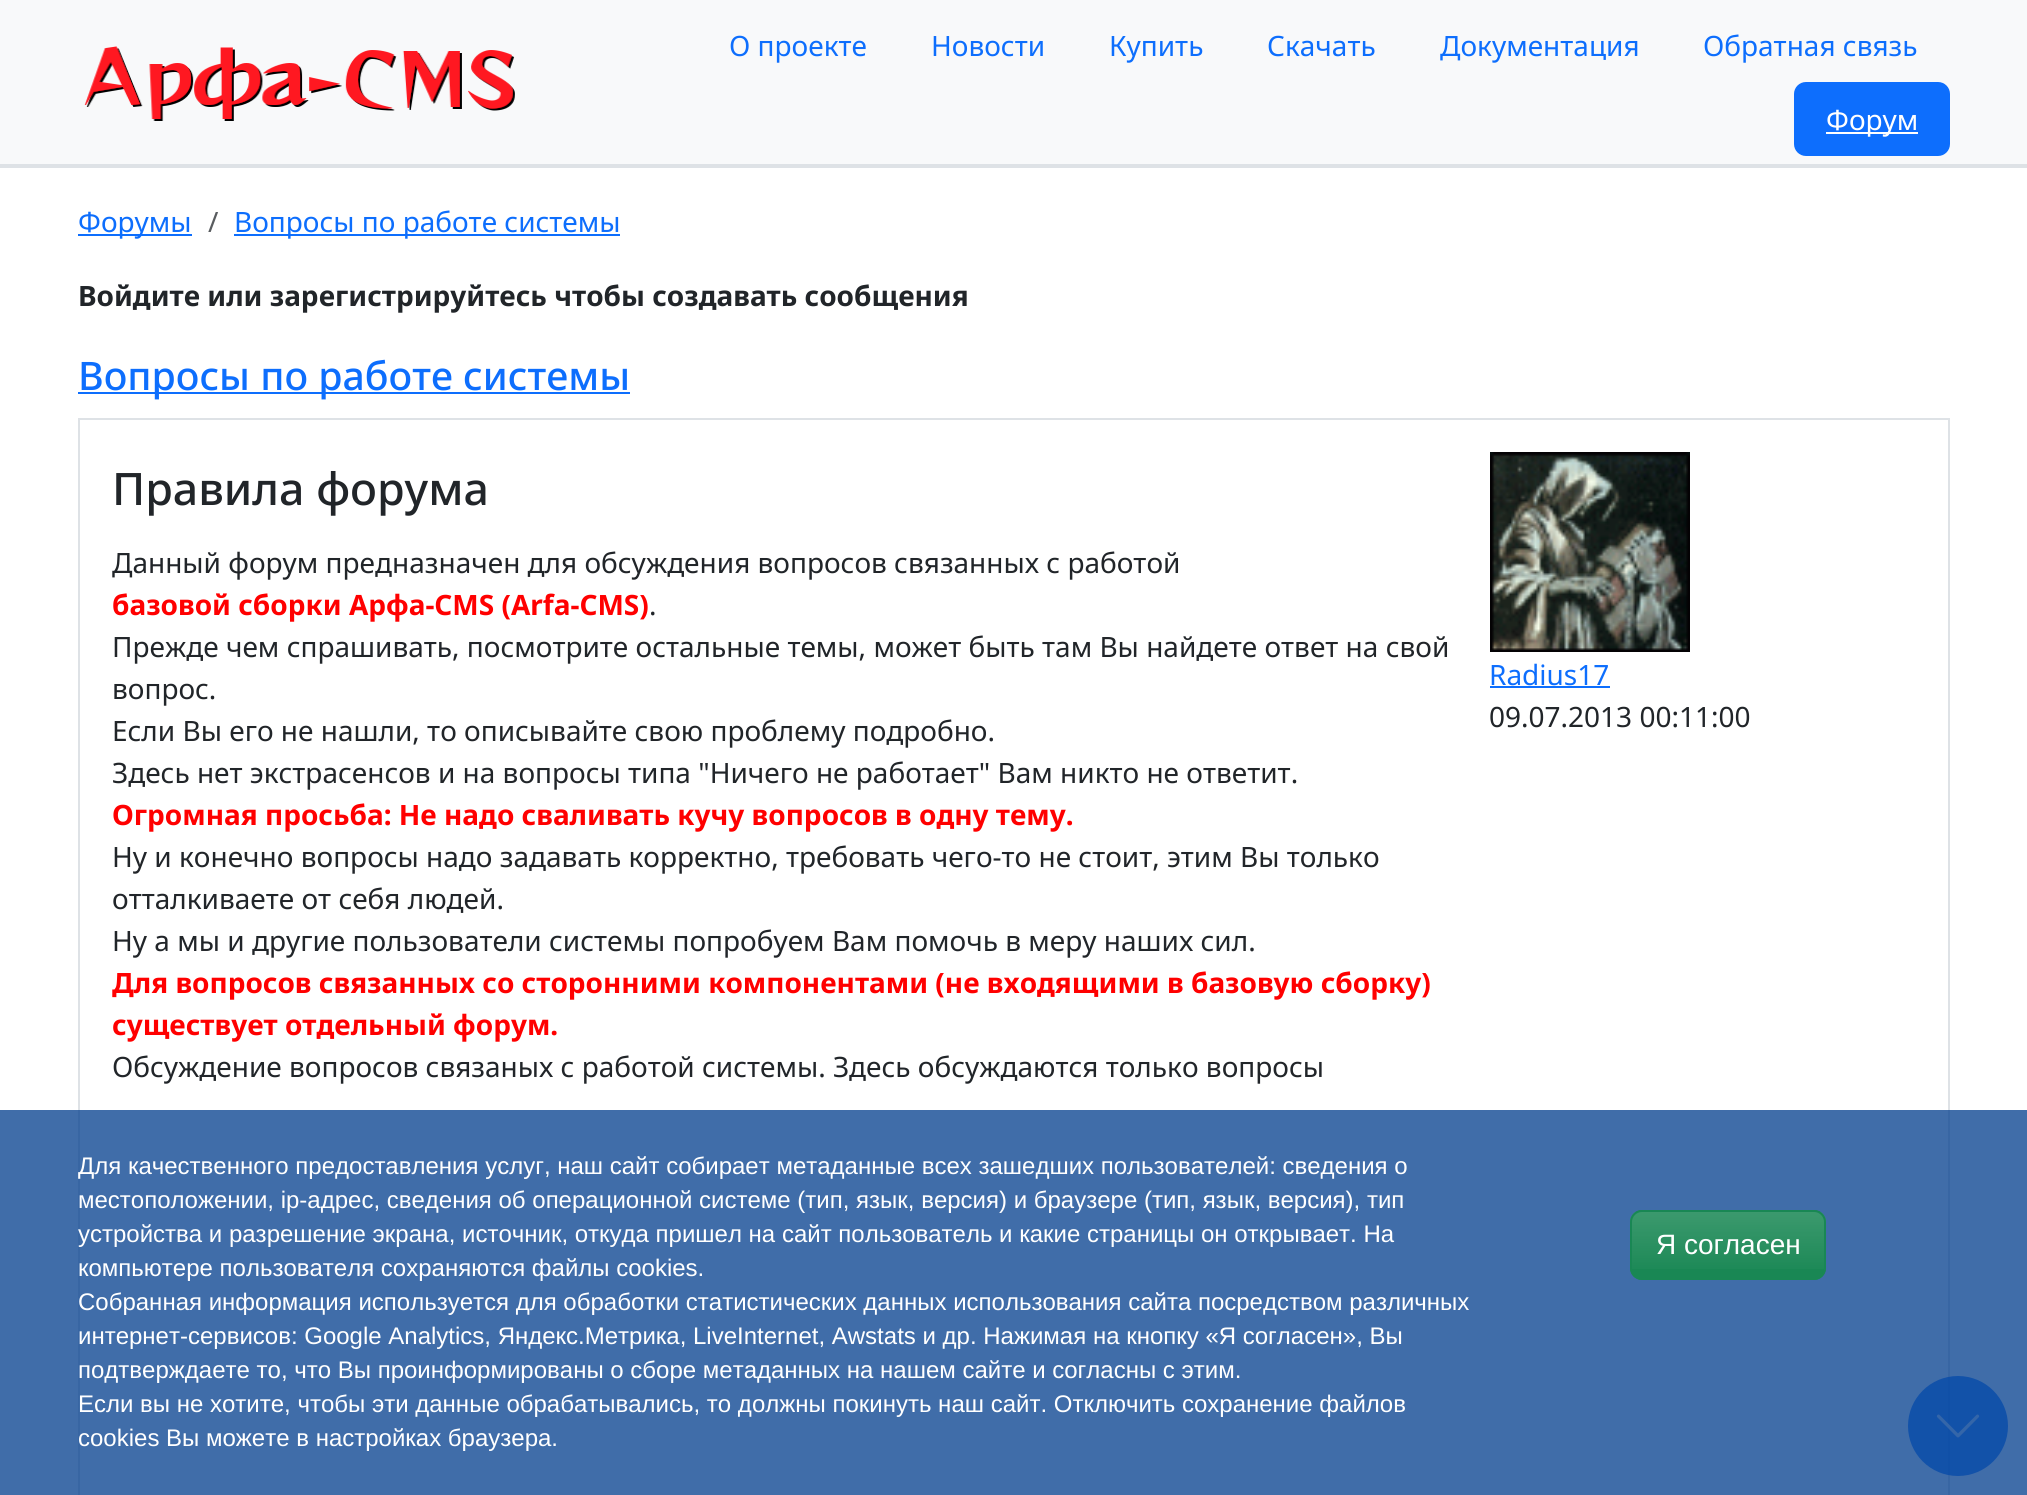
#include <cairo.h>
#include <math.h>
#include <stddef.h>


static void set_color(cairo_t *cr, unsigned color) {
    cairo_set_source_rgb(cr, (color >> 16) / 255.0, (color >> 8 & 255) / 255.0, (color & 255) / 255.0);
}

static void draw_text(cairo_t *cr, double x, double y, const char *s, const char *family, double size, int italic, int bold, unsigned color) {
    cairo_select_font_face(cr, family, italic ? CAIRO_FONT_SLANT_ITALIC : CAIRO_FONT_SLANT_NORMAL,
        bold ? CAIRO_FONT_WEIGHT_BOLD : CAIRO_FONT_WEIGHT_NORMAL);
    cairo_set_font_size(cr, size);
    set_color(cr, color);
    cairo_move_to(cr, x, y);
    cairo_show_text(cr, s);
}

static void fill_rect(cairo_t *cr, double x, double y, double w, double h, unsigned color) {
    set_color(cr, color);
    cairo_rectangle(cr, x, y, w, h);
    cairo_fill(cr);
}

static void rounded_rect(cairo_t *cr, double x, double y, double w, double h, double r) {
    cairo_new_sub_path(cr);
    cairo_arc(cr, x + w - r, y + h - r, r, 0, M_PI / 2);
    cairo_arc(cr, x + r, y + h - r, r, M_PI / 2, M_PI);
    cairo_arc(cr, x + r, y + r, r, M_PI, 1.5 * M_PI);
    cairo_arc(cr, x + w - r, y + r, r, 1.5 * M_PI, 2 * M_PI);
    cairo_close_path(cr);
}

static void draw_image(cairo_t *cr, const char *path, double x, double y, double w, double h) {
    cairo_surface_t *image = cairo_image_surface_create_from_png(path);
    cairo_save(cr);
    cairo_set_source_surface(cr, image, x, y);
    cairo_rectangle(cr, x, y, w, h);
    cairo_fill(cr);
    cairo_restore(cr);
    cairo_surface_destroy(image);
}

int main(void) {
    cairo_surface_t *surface = cairo_image_surface_create(CAIRO_FORMAT_RGB24, 2027, 1495);
    cairo_t *cr = cairo_create(surface);
    cairo_font_options_t *options = cairo_font_options_create();
    cairo_font_options_set_hint_metrics(options, CAIRO_HINT_METRICS_OFF);
    cairo_font_options_set_hint_style(options, CAIRO_HINT_STYLE_NONE);
    cairo_set_font_options(cr, options);
    cairo_set_miter_limit(cr, 4);
    cairo_pattern_t *gradient;
    set_color(cr, 0xFFFFFF);
    cairo_paint(cr);
    fill_rect(cr, 0, 164, 2027, 4, 0xDEE2E6);
    fill_rect(cr, 0, 0, 2027, 164, 0xF8F9FA);
    draw_image(cr, "assets/img1.png", 84, 46, 431, 75);
    draw_text(cr, 729, 56, "О проекте", "Noto Sans", 28, 0, 0, 0x0D6EFD);
    draw_text(cr, 931, 56, "Новости", "Noto Sans", 28, 0, 0, 0x0D6EFD);
    draw_text(cr, 1109, 56, "Купить", "Noto Sans", 28, 0, 0, 0x0D6EFD);
    draw_text(cr, 1267, 56, "Скачать", "Noto Sans", 28, 0, 0, 0x0D6EFD);
    draw_text(cr, 1440, 56, "Документация", "Noto Sans", 28, 0, 0, 0x0D6EFD);
    draw_text(cr, 1703, 56, "Обратная связь", "Noto Sans", 28, 0, 0, 0x0D6EFD);
    rounded_rect(cr, 1794, 82, 156, 74, 12);
    cairo_fill(cr);
    fill_rect(cr, 1826, 132, 92, 2, 0xFFFFFF);
    draw_text(cr, 1826, 130, "Форум", "Noto Sans", 28, 0, 0, 0xFFFFFF);
    fill_rect(cr, 78, 234, 114, 2, 0x0D6EFD);
    draw_text(cr, 78, 232, "Форумы", "Noto Sans", 28, 0, 0, 0x0D6EFD);
    draw_text(cr, 208, 232, "/", "Noto Sans", 28, 0, 0, 0x595C5F);
    fill_rect(cr, 234, 234, 386, 2, 0x0D6EFD);
    draw_text(cr, 234, 232, "Вопросы по работе системы", "Noto Sans", 28, 0, 0, 0x0D6EFD);
    draw_text(cr, 78, 306, "Войдите или зарегистрируйтесь чтобы создавать сообщения", "Noto Sans", 28, 0, 1, 0x212529);
    fill_rect(cr, 78, 392, 552, 2, 0x0D6EFD);
    draw_text(cr, 78, 390, "Вопросы по работе системы", "Noto Sans Medium", 39.25, 0, 0, 0x0D6EFD);
    cairo_rectangle(cr, 79, 419, 1870, 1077);
    set_color(cr, 0xDEE2E6);
    cairo_stroke(cr);
    draw_text(cr, 112, 505, "Правила форума", "Noto Sans Medium", 44.75, 0, 0, 0x212529);
    draw_text(cr, 112, 573, "Данный форум предназначен для обсуждения вопросов связанных с работой", "Noto Sans", 28, 0, 0, 0x212529);
    draw_text(cr, 112, 615, "базовой сборки Арфа-CMS (Arfa-CMS)", "Noto Sans", 28, 0, 1, 0xFF0000);
    draw_text(cr, 649, 615, ".", "Noto Sans", 28, 0, 0, 0x212529);
    draw_text(cr, 112, 657, "Прежде чем спрашивать, посмотрите остальные темы, может быть там Вы найдете ответ на свой", "Noto Sans", 28, 0, 0, 0x212529);
    draw_text(cr, 112, 699, "вопрос.", "Noto Sans", 28, 0, 0, 0x212529);
    draw_text(cr, 112, 741, "Если Вы его не нашли, то описывайте свою проблему подробно.", "Noto Sans", 28, 0, 0, 0x212529);
    draw_text(cr, 112, 783, "Здесь нет экстрасенсов и на вопросы типа \"Ничего не работает\" Вам никто не ответит.", "Noto Sans", 28, 0, 0, 0x212529);
    draw_text(cr, 112, 825, "Огромная просьба: Не надо сваливать кучу вопросов в одну тему.", "Noto Sans", 28, 0, 1, 0xFF0000);
    draw_text(cr, 112, 867, "Ну и конечно вопросы надо задавать корректно, требовать чего-то не стоит, этим Вы только", "Noto Sans", 28, 0, 0, 0x212529);
    draw_text(cr, 112, 909, "отталкиваете от себя людей.", "Noto Sans", 28, 0, 0, 0x212529);
    draw_text(cr, 112, 951, "Ну а мы и другие пользователи системы попробуем Вам помочь в меру наших сил.", "Noto Sans", 28, 0, 0, 0x212529);
    draw_text(cr, 112, 993, "Для вопросов связанных со сторонними компонентами (не входящими в базовую сборку)", "Noto Sans", 28, 0, 1, 0xFF0000);
    draw_text(cr, 112, 1035, "существует отдельный форум.", "Noto Sans", 28, 0, 1, 0xFF0000);
    draw_text(cr, 112, 1077, "Обсуждение вопросов связаных с работой системы. Здесь обсуждаются только вопросы", "Noto Sans", 28, 0, 0, 0x212529);
    draw_image(cr, "assets/img2.png", 1490, 452, 200, 200);
    draw_text(cr, 1489, 685, "Radius17", "Noto Sans", 28, 0, 0, 0x0D6EFD);
    fill_rect(cr, 1490, 686, 120, 2, 0x0D6EFD);
    draw_text(cr, 1489, 727, "09.07.2013 00:11:00", "Noto Sans", 28, 0, 0, 0x212529);
    cairo_set_source_rgba(cr, 0.051, 0.431, 0.992, 0.75);
    cairo_new_path(cr);
    cairo_arc(cr, 1958, 1426, 50, 0, 2 * M_PI);
    cairo_fill(cr);
    draw_image(cr, "assets/img3.png", 1936, 1414, 44, 24);
    cairo_set_source_rgba(cr, 0, 0.235, 0.549, 0.75);
    cairo_rectangle(cr, 0, 1110, 2027, 385);
    cairo_fill(cr);
    draw_text(cr, 78, 1174, "Для качественного предоставления услуг, наш сайт собирает метаданные всех зашедших пользователей: сведения о", "Liberation Sans", 24, 0, 0, 0xFFFFFF);
    draw_text(cr, 78, 1208, "местоположении, ip-адрес, сведения об операционной системе (тип, язык, версия) и браузере (тип, язык, версия), тип", "Liberation Sans", 24, 0, 0, 0xFFFFFF);
    draw_text(cr, 78, 1242, "устройства и разрешение экрана, источник, откуда пришел на сайт пользователь и какие страницы он открывает. На", "Liberation Sans", 24, 0, 0, 0xFFFFFF);
    draw_text(cr, 78, 1276, "компьютере пользователя сохраняются файлы cookies.", "Liberation Sans", 24, 0, 0, 0xFFFFFF);
    draw_text(cr, 78, 1310, "Собранная информация используется для обработки статистических данных использования сайта посредством различных", "Liberation Sans", 24, 0, 0, 0xFFFFFF);
    draw_text(cr, 78, 1344, "интернет-сервисов: Google Analytics, Яндекс.Метрика, LiveInternet, Awstats и др. Нажимая на кнопку «Я согласен», Вы", "Liberation Sans", 24, 0, 0, 0xFFFFFF);
    draw_text(cr, 78, 1378, "подтверждаете то, что Вы проинформированы о сборе метаданных на нашем сайте и согласны с этим.", "Liberation Sans", 24, 0, 0, 0xFFFFFF);
    draw_text(cr, 78, 1412, "Если вы не хотите, чтобы эти данные обрабатывались, то должны покинуть наш сайт. Отключить сохранение файлов", "Liberation Sans", 24, 0, 0, 0xFFFFFF);
    draw_text(cr, 78, 1446, "cookies Вы можете в настройках браузера.", "Liberation Sans", 24, 0, 0, 0xFFFFFF);
    set_color(cr, 0x198754);
    rounded_rect(cr, 1630, 1210, 196, 70, 12);
    cairo_fill(cr);
    cairo_save(cr);
    rounded_rect(cr, 1630, 1210, 196, 70, 12);
    cairo_clip(cr);
    gradient = cairo_pattern_create_linear(1728, 1212, 1728, 1278);
    cairo_pattern_add_color_stop_rgba(gradient, 0, 1, 1, 1, 0.15);
    cairo_pattern_add_color_stop_rgba(gradient, 1, 1, 1, 1, 0);
    cairo_set_source(cr, gradient);
    cairo_pattern_destroy(gradient);
    cairo_rectangle(cr, 1630, 1212, 196, 57);
    cairo_fill(cr);
    cairo_restore(cr);
    rounded_rect(cr, 1631, 1211, 194, 68, 11);
    cairo_stroke(cr);
    draw_text(cr, 1656, 1254, "Я согласен", "Liberation Sans", 28, 0, 0, 0xFFFFFF);
    cairo_surface_write_to_png(surface, "output.png");
    cairo_font_options_destroy(options);
    cairo_destroy(cr);
    cairo_surface_destroy(surface);
    return 0;
}
